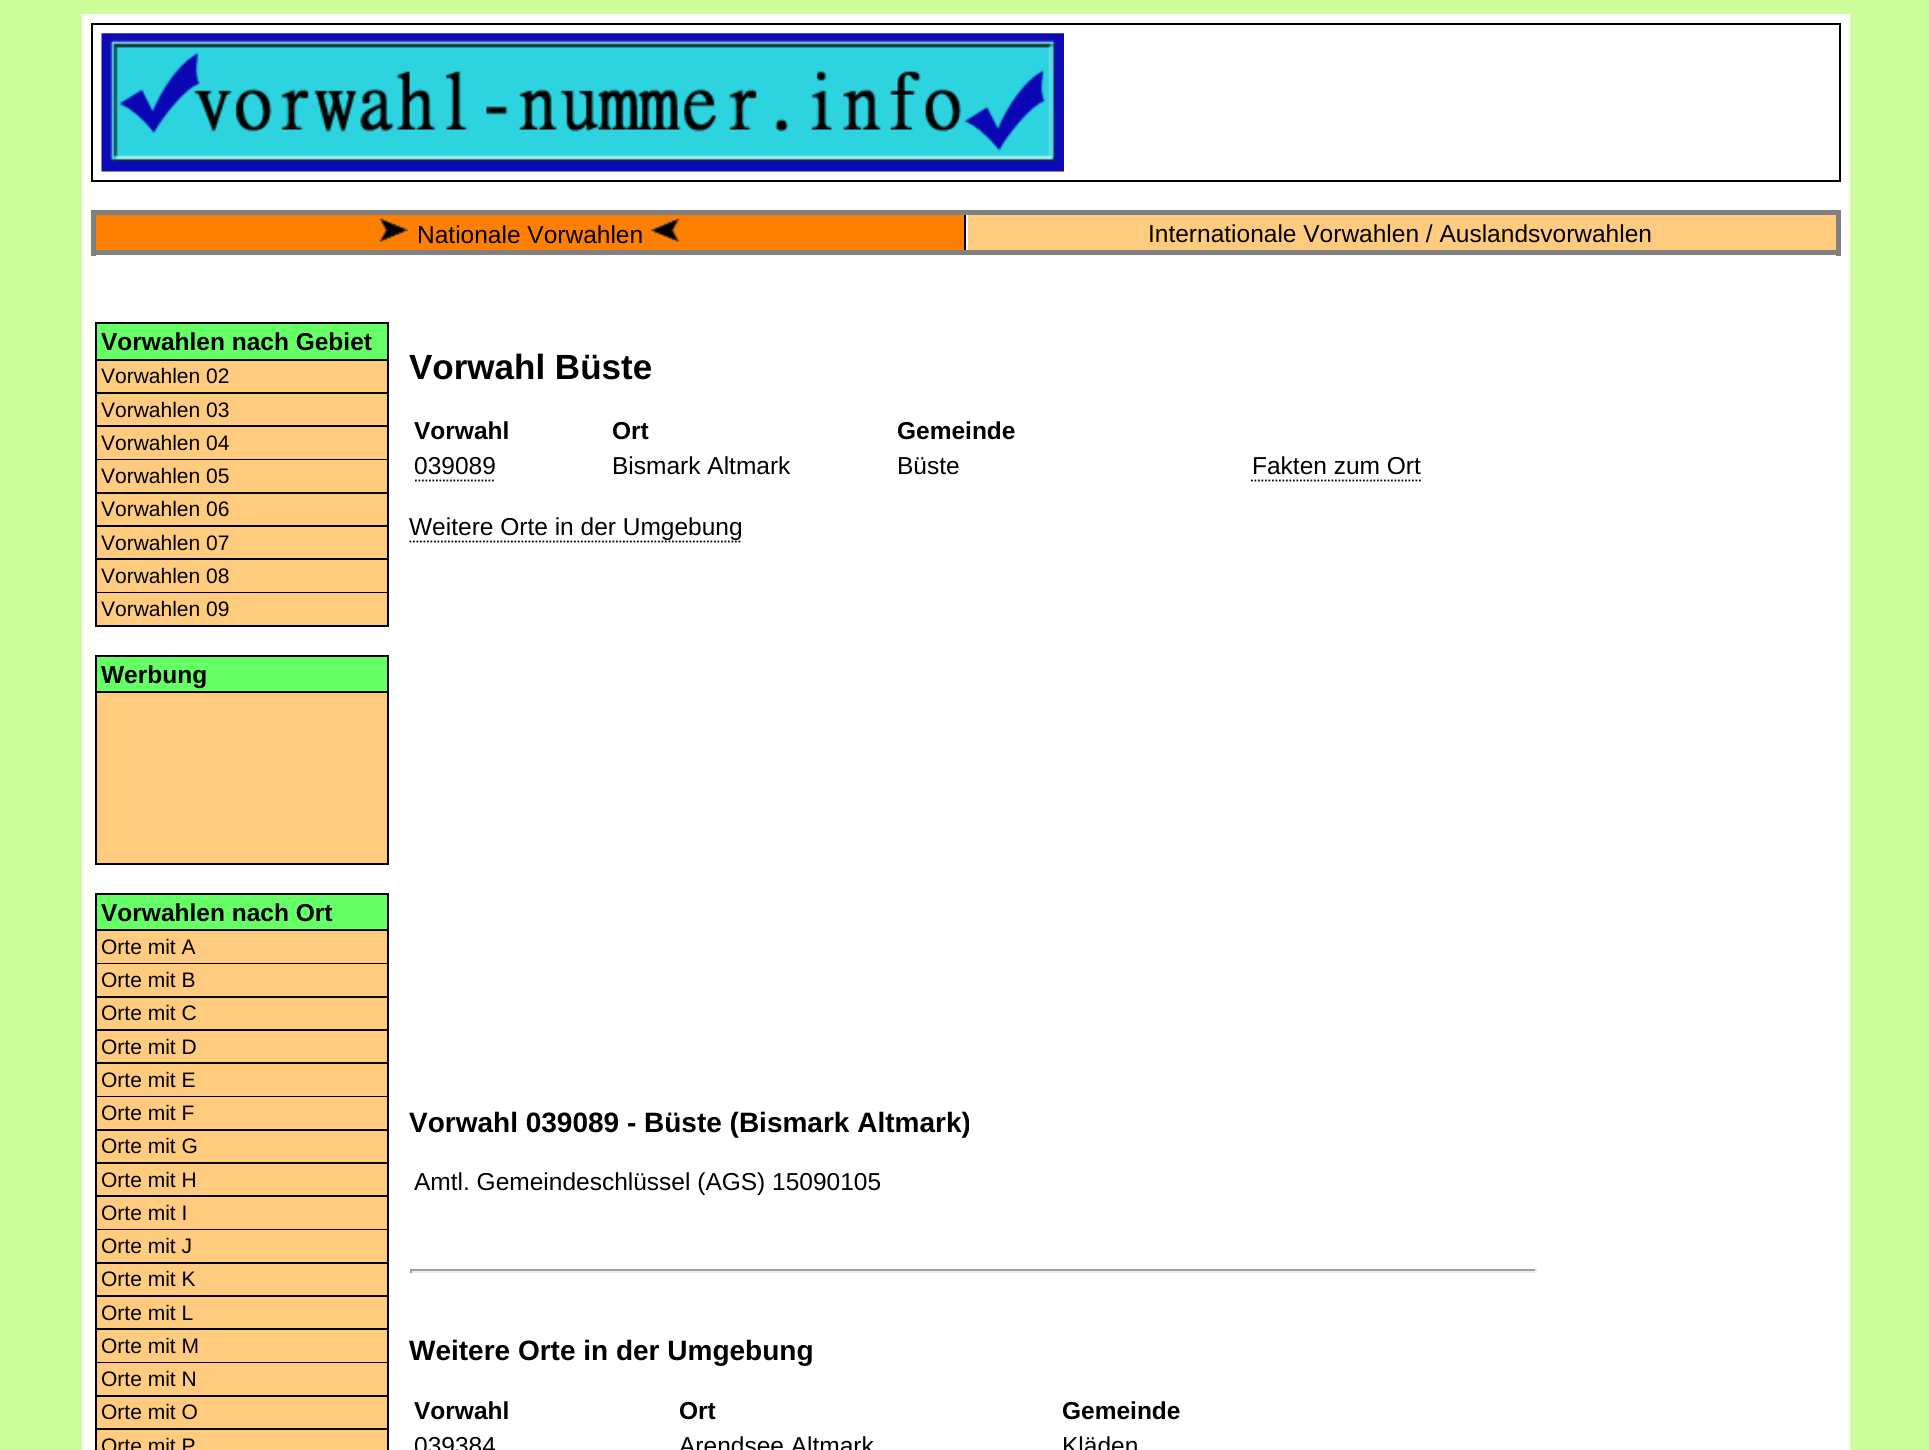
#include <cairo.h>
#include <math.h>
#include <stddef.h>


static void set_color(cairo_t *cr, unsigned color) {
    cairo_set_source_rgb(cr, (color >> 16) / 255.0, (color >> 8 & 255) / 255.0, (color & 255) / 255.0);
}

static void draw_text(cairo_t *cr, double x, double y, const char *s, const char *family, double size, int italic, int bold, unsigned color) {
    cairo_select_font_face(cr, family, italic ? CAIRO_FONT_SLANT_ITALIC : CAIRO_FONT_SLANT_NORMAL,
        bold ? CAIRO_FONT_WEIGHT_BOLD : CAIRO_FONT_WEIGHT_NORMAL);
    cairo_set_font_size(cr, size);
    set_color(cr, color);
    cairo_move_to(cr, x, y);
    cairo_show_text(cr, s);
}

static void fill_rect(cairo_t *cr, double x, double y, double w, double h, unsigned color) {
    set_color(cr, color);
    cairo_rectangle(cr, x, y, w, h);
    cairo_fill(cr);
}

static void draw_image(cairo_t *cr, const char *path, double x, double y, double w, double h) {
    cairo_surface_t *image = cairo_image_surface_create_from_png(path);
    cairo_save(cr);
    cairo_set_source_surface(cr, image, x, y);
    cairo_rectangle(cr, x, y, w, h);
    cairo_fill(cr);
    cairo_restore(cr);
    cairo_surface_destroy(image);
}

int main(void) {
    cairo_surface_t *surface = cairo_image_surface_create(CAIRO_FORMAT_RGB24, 1929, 1450);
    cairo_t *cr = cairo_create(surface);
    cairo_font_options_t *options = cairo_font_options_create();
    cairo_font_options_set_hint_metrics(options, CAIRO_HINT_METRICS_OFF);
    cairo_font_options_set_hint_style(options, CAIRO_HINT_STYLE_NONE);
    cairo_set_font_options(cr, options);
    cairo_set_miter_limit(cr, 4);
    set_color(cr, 0xCCFF99);
    cairo_paint(cr);
    fill_rect(cr, 82, 14, 1768, 1436, 0xFFFFFF);
    cairo_rectangle(cr, 92, 24, 1748, 157);
    set_color(cr, 0x000000);
    cairo_stroke(cr);
    draw_image(cr, "assets/img1.png", 101, 33, 963, 139);
    fill_rect(cr, 964, 212, 2, 42, 0x000000);
    fill_rect(cr, 91, 210, 1750, 5, 0x808080);
    fill_rect(cr, 1836, 210, 5, 46, 0x808080);
    fill_rect(cr, 91, 250, 1750, 5, 0x808080);
    fill_rect(cr, 91, 210, 5, 46, 0x808080);
    fill_rect(cr, 96, 215, 868, 35, 0xFF7F00);
    draw_image(cr, "assets/img2.png", 378, 217, 32, 27);
    draw_text(cr, 417, 243, "Nationale Vorwahlen", "Liberation Sans", 24.5, 0, 0, 0x000000);
    draw_image(cr, "assets/img3.png", 649, 217, 32, 27);
    fill_rect(cr, 968, 215, 868, 35, 0xFFCC7F);
    draw_text(cr, 1148, 242, "Internationale Vorwahlen / Auslandsvorwahlen", "Liberation Sans", 24.5, 0, 0, 0x000000);
    set_color(cr, 0x66FF66);
    cairo_rectangle(cr, 96, 323, 292, 37);
    cairo_fill_preserve(cr);
    set_color(cr, 0x000000);
    cairo_stroke(cr);
    draw_text(cr, 101, 350, "Vorwahlen nach Gebiet", "Liberation Sans", 24.5, 0, 1, 0x000000);
    fill_rect(cr, 97, 361, 290, 31, 0xFFCC7F);
    fill_rect(cr, 387, 361, 2, 266, 0x000000);
    fill_rect(cr, 95, 392, 294, 2, 0x000000);
    fill_rect(cr, 95, 361, 2, 33, 0x000000);
    draw_text(cr, 101, 383, "Vorwahlen 02", "Liberation Sans", 21, 0, 0, 0x000000);
    fill_rect(cr, 97, 394, 290, 31, 0xFFCC7F);
    fill_rect(cr, 95, 425, 294, 2, 0x000000);
    fill_rect(cr, 95, 394, 2, 33, 0x000000);
    draw_text(cr, 101, 417, "Vorwahlen 03", "Liberation Sans", 21, 0, 0, 0x000000);
    fill_rect(cr, 97, 427, 290, 32, 0xFFCC7F);
    fill_rect(cr, 95, 459, 294, 1, 0x000000);
    fill_rect(cr, 95, 427, 2, 33, 0x000000);
    draw_text(cr, 101, 450, "Vorwahlen 04", "Liberation Sans", 21, 0, 0, 0x000000);
    fill_rect(cr, 97, 460, 290, 32, 0xFFCC7F);
    fill_rect(cr, 95, 492, 294, 2, 0x000000);
    fill_rect(cr, 95, 460, 2, 34, 0x000000);
    draw_text(cr, 101, 483, "Vorwahlen 05", "Liberation Sans", 21, 0, 0, 0x000000);
    fill_rect(cr, 97, 494, 290, 31, 0xFFCC7F);
    fill_rect(cr, 95, 525, 294, 2, 0x000000);
    fill_rect(cr, 95, 494, 2, 33, 0x000000);
    draw_text(cr, 101, 516, "Vorwahlen 06", "Liberation Sans", 21, 0, 0, 0x000000);
    fill_rect(cr, 97, 527, 290, 31, 0xFFCC7F);
    fill_rect(cr, 95, 558, 294, 2, 0x000000);
    fill_rect(cr, 95, 527, 2, 33, 0x000000);
    draw_text(cr, 101, 550, "Vorwahlen 07", "Liberation Sans", 21, 0, 0, 0x000000);
    fill_rect(cr, 97, 560, 290, 32, 0xFFCC7F);
    fill_rect(cr, 95, 592, 294, 1, 0x000000);
    fill_rect(cr, 95, 560, 2, 33, 0x000000);
    draw_text(cr, 101, 583, "Vorwahlen 08", "Liberation Sans", 21, 0, 0, 0x000000);
    fill_rect(cr, 97, 593, 290, 32, 0xFFCC7F);
    fill_rect(cr, 95, 625, 294, 2, 0x000000);
    fill_rect(cr, 95, 593, 2, 34, 0x000000);
    draw_text(cr, 101, 616, "Vorwahlen 09", "Liberation Sans", 21, 0, 0, 0x000000);
    set_color(cr, 0x66FF66);
    cairo_rectangle(cr, 96, 656, 292, 36);
    cairo_fill_preserve(cr);
    set_color(cr, 0x000000);
    cairo_stroke(cr);
    draw_text(cr, 101, 683, "Werbung", "Liberation Sans", 24.5, 0, 1, 0x000000);
    fill_rect(cr, 97, 693, 290, 170, 0xFFCC7F);
    fill_rect(cr, 387, 693, 2, 172, 0x000000);
    fill_rect(cr, 95, 863, 294, 2, 0x000000);
    fill_rect(cr, 95, 693, 2, 172, 0x000000);
    set_color(cr, 0x66FF66);
    cairo_rectangle(cr, 96, 894, 292, 36);
    cairo_fill_preserve(cr);
    set_color(cr, 0x000000);
    cairo_stroke(cr);
    draw_text(cr, 101, 921, "Vorwahlen nach Ort", "Liberation Sans", 24.5, 0, 1, 0x000000);
    fill_rect(cr, 97, 931, 290, 32, 0xFFCC7F);
    fill_rect(cr, 387, 931, 2, 519, 0x000000);
    fill_rect(cr, 95, 963, 294, 1, 0x000000);
    fill_rect(cr, 95, 931, 2, 33, 0x000000);
    draw_text(cr, 101, 954, "Orte mit A", "Liberation Sans", 21, 0, 0, 0x000000);
    fill_rect(cr, 97, 964, 290, 32, 0xFFCC7F);
    fill_rect(cr, 95, 996, 294, 2, 0x000000);
    fill_rect(cr, 95, 964, 2, 34, 0x000000);
    draw_text(cr, 101, 987, "Orte mit B", "Liberation Sans", 21, 0, 0, 0x000000);
    fill_rect(cr, 97, 998, 290, 31, 0xFFCC7F);
    fill_rect(cr, 95, 1029, 294, 2, 0x000000);
    fill_rect(cr, 95, 998, 2, 33, 0x000000);
    draw_text(cr, 101, 1020, "Orte mit C", "Liberation Sans", 21, 0, 0, 0x000000);
    fill_rect(cr, 97, 1031, 290, 31, 0xFFCC7F);
    fill_rect(cr, 95, 1062, 294, 2, 0x000000);
    fill_rect(cr, 95, 1031, 2, 33, 0x000000);
    draw_text(cr, 101, 1054, "Orte mit D", "Liberation Sans", 21, 0, 0, 0x000000);
    fill_rect(cr, 97, 1064, 290, 32, 0xFFCC7F);
    fill_rect(cr, 95, 1096, 294, 1, 0x000000);
    fill_rect(cr, 95, 1064, 2, 33, 0x000000);
    draw_text(cr, 101, 1087, "Orte mit E", "Liberation Sans", 21, 0, 0, 0x000000);
    fill_rect(cr, 97, 1097, 290, 32, 0xFFCC7F);
    fill_rect(cr, 95, 1129, 294, 2, 0x000000);
    fill_rect(cr, 95, 1097, 2, 34, 0x000000);
    draw_text(cr, 101, 1120, "Orte mit F", "Liberation Sans", 21, 0, 0, 0x000000);
    fill_rect(cr, 97, 1131, 290, 31, 0xFFCC7F);
    fill_rect(cr, 95, 1162, 294, 2, 0x000000);
    fill_rect(cr, 95, 1131, 2, 33, 0x000000);
    draw_text(cr, 101, 1153, "Orte mit G", "Liberation Sans", 21, 0, 0, 0x000000);
    fill_rect(cr, 97, 1164, 290, 31, 0xFFCC7F);
    fill_rect(cr, 95, 1195, 294, 2, 0x000000);
    fill_rect(cr, 95, 1164, 2, 33, 0x000000);
    draw_text(cr, 101, 1187, "Orte mit H", "Liberation Sans", 21, 0, 0, 0x000000);
    fill_rect(cr, 97, 1197, 290, 32, 0xFFCC7F);
    fill_rect(cr, 95, 1229, 294, 1, 0x000000);
    fill_rect(cr, 95, 1197, 2, 33, 0x000000);
    draw_text(cr, 101, 1220, "Orte mit I", "Liberation Sans", 21, 0, 0, 0x000000);
    fill_rect(cr, 97, 1230, 290, 32, 0xFFCC7F);
    fill_rect(cr, 95, 1262, 294, 2, 0x000000);
    fill_rect(cr, 95, 1230, 2, 34, 0x000000);
    draw_text(cr, 101, 1253, "Orte mit J", "Liberation Sans", 21, 0, 0, 0x000000);
    fill_rect(cr, 97, 1264, 290, 31, 0xFFCC7F);
    fill_rect(cr, 95, 1295, 294, 2, 0x000000);
    fill_rect(cr, 95, 1264, 2, 33, 0x000000);
    draw_text(cr, 101, 1286, "Orte mit K", "Liberation Sans", 21, 0, 0, 0x000000);
    fill_rect(cr, 97, 1297, 290, 31, 0xFFCC7F);
    fill_rect(cr, 95, 1328, 294, 2, 0x000000);
    fill_rect(cr, 95, 1297, 2, 33, 0x000000);
    draw_text(cr, 101, 1320, "Orte mit L", "Liberation Sans", 21, 0, 0, 0x000000);
    fill_rect(cr, 97, 1330, 290, 32, 0xFFCC7F);
    fill_rect(cr, 95, 1362, 294, 1, 0x000000);
    fill_rect(cr, 95, 1330, 2, 33, 0x000000);
    draw_text(cr, 101, 1353, "Orte mit M", "Liberation Sans", 21, 0, 0, 0x000000);
    fill_rect(cr, 97, 1363, 290, 32, 0xFFCC7F);
    fill_rect(cr, 95, 1395, 294, 2, 0x000000);
    fill_rect(cr, 95, 1363, 2, 34, 0x000000);
    draw_text(cr, 101, 1386, "Orte mit N", "Liberation Sans", 21, 0, 0, 0x000000);
    fill_rect(cr, 97, 1397, 290, 31, 0xFFCC7F);
    fill_rect(cr, 95, 1428, 294, 2, 0x000000);
    fill_rect(cr, 95, 1397, 2, 53, 0x000000);
    draw_text(cr, 101, 1419, "Orte mit O", "Liberation Sans", 21, 0, 0, 0x000000);
    fill_rect(cr, 97, 1430, 290, 20, 0xFFCC7F);
    draw_text(cr, 101, 1453, "Orte mit P", "Liberation Sans", 21, 0, 0, 0x000000);
    draw_text(cr, 409, 379, "Vorwahl Büste", "Liberation Sans", 35, 0, 1, 0x000000);
    draw_text(cr, 414, 439, "Vorwahl", "Liberation Sans", 24.5, 0, 1, 0x000000);
    draw_text(cr, 612, 439, "Ort", "Liberation Sans", 24.5, 0, 1, 0x000000);
    draw_text(cr, 897, 439, "Gemeinde", "Liberation Sans", 24.5, 0, 1, 0x000000);
    draw_text(cr, 414, 474, "039089", "Liberation Sans", 24.5, 0, 0, 0x000000);
    cairo_new_path(cr);
    cairo_move_to(cr, 415, 480.5);
    cairo_line_to(cr, 495, 480.5);
    cairo_set_line_width(cr, 1.8);
    cairo_set_dash(cr, (double[]){1.75, 1.75}, 2, 0);
    cairo_stroke(cr);
    draw_text(cr, 612, 474, "Bismark Altmark", "Liberation Sans", 24.5, 0, 0, 0x000000);
    draw_text(cr, 897, 474, "Büste", "Liberation Sans", 24.5, 0, 0, 0x000000);
    draw_text(cr, 1252, 474, "Fakten zum Ort", "Liberation Sans", 24.5, 0, 0, 0x000000);
    cairo_new_path(cr);
    cairo_move_to(cr, 1251, 480.5);
    cairo_line_to(cr, 1421, 480.5);
    cairo_stroke(cr);
    cairo_new_path(cr);
    cairo_move_to(cr, 409.5, 541.5);
    cairo_line_to(cr, 742, 541.5);
    cairo_stroke(cr);
    draw_text(cr, 409, 535, "Weitere Orte in der Umgebung", "Liberation Sans", 24.5, 0, 0, 0x000000);
    draw_text(cr, 409, 1132, "Vorwahl 039089 - Büste (Bismark Altmark)", "Liberation Sans", 28, 0, 1, 0x000000);
    draw_text(cr, 414, 1190, "Amtl. Gemeindeschlüssel (AGS) 15090105", "Liberation Sans", 24.5, 0, 0, 0x000000);
    fill_rect(cr, 410, 1269, 1127, 2, 0x9F9F9F);
    fill_rect(cr, 1535, 1269, 2, 4, 0xEEEEEE);
    fill_rect(cr, 410, 1271, 1127, 2, 0xEEEEEE);
    fill_rect(cr, 410, 1269, 2, 4, 0x9F9F9F);
    draw_text(cr, 409, 1360, "Weitere Orte in der Umgebung", "Liberation Sans", 28, 0, 1, 0x000000);
    draw_text(cr, 414, 1419, "Vorwahl", "Liberation Sans", 24.5, 0, 1, 0x000000);
    draw_text(cr, 679, 1419, "Ort", "Liberation Sans", 24.5, 0, 1, 0x000000);
    draw_text(cr, 1062, 1419, "Gemeinde", "Liberation Sans", 24.5, 0, 1, 0x000000);
    draw_text(cr, 414, 1454, "039384", "Liberation Sans", 24.5, 0, 0, 0x000000);
    draw_text(cr, 679, 1454, "Arendsee Altmark", "Liberation Sans", 24.5, 0, 0, 0x000000);
    draw_text(cr, 1062, 1454, "Kläden", "Liberation Sans", 24.5, 0, 0, 0x000000);
    cairo_surface_write_to_png(surface, "output.png");
    cairo_font_options_destroy(options);
    cairo_destroy(cr);
    cairo_surface_destroy(surface);
    return 0;
}
